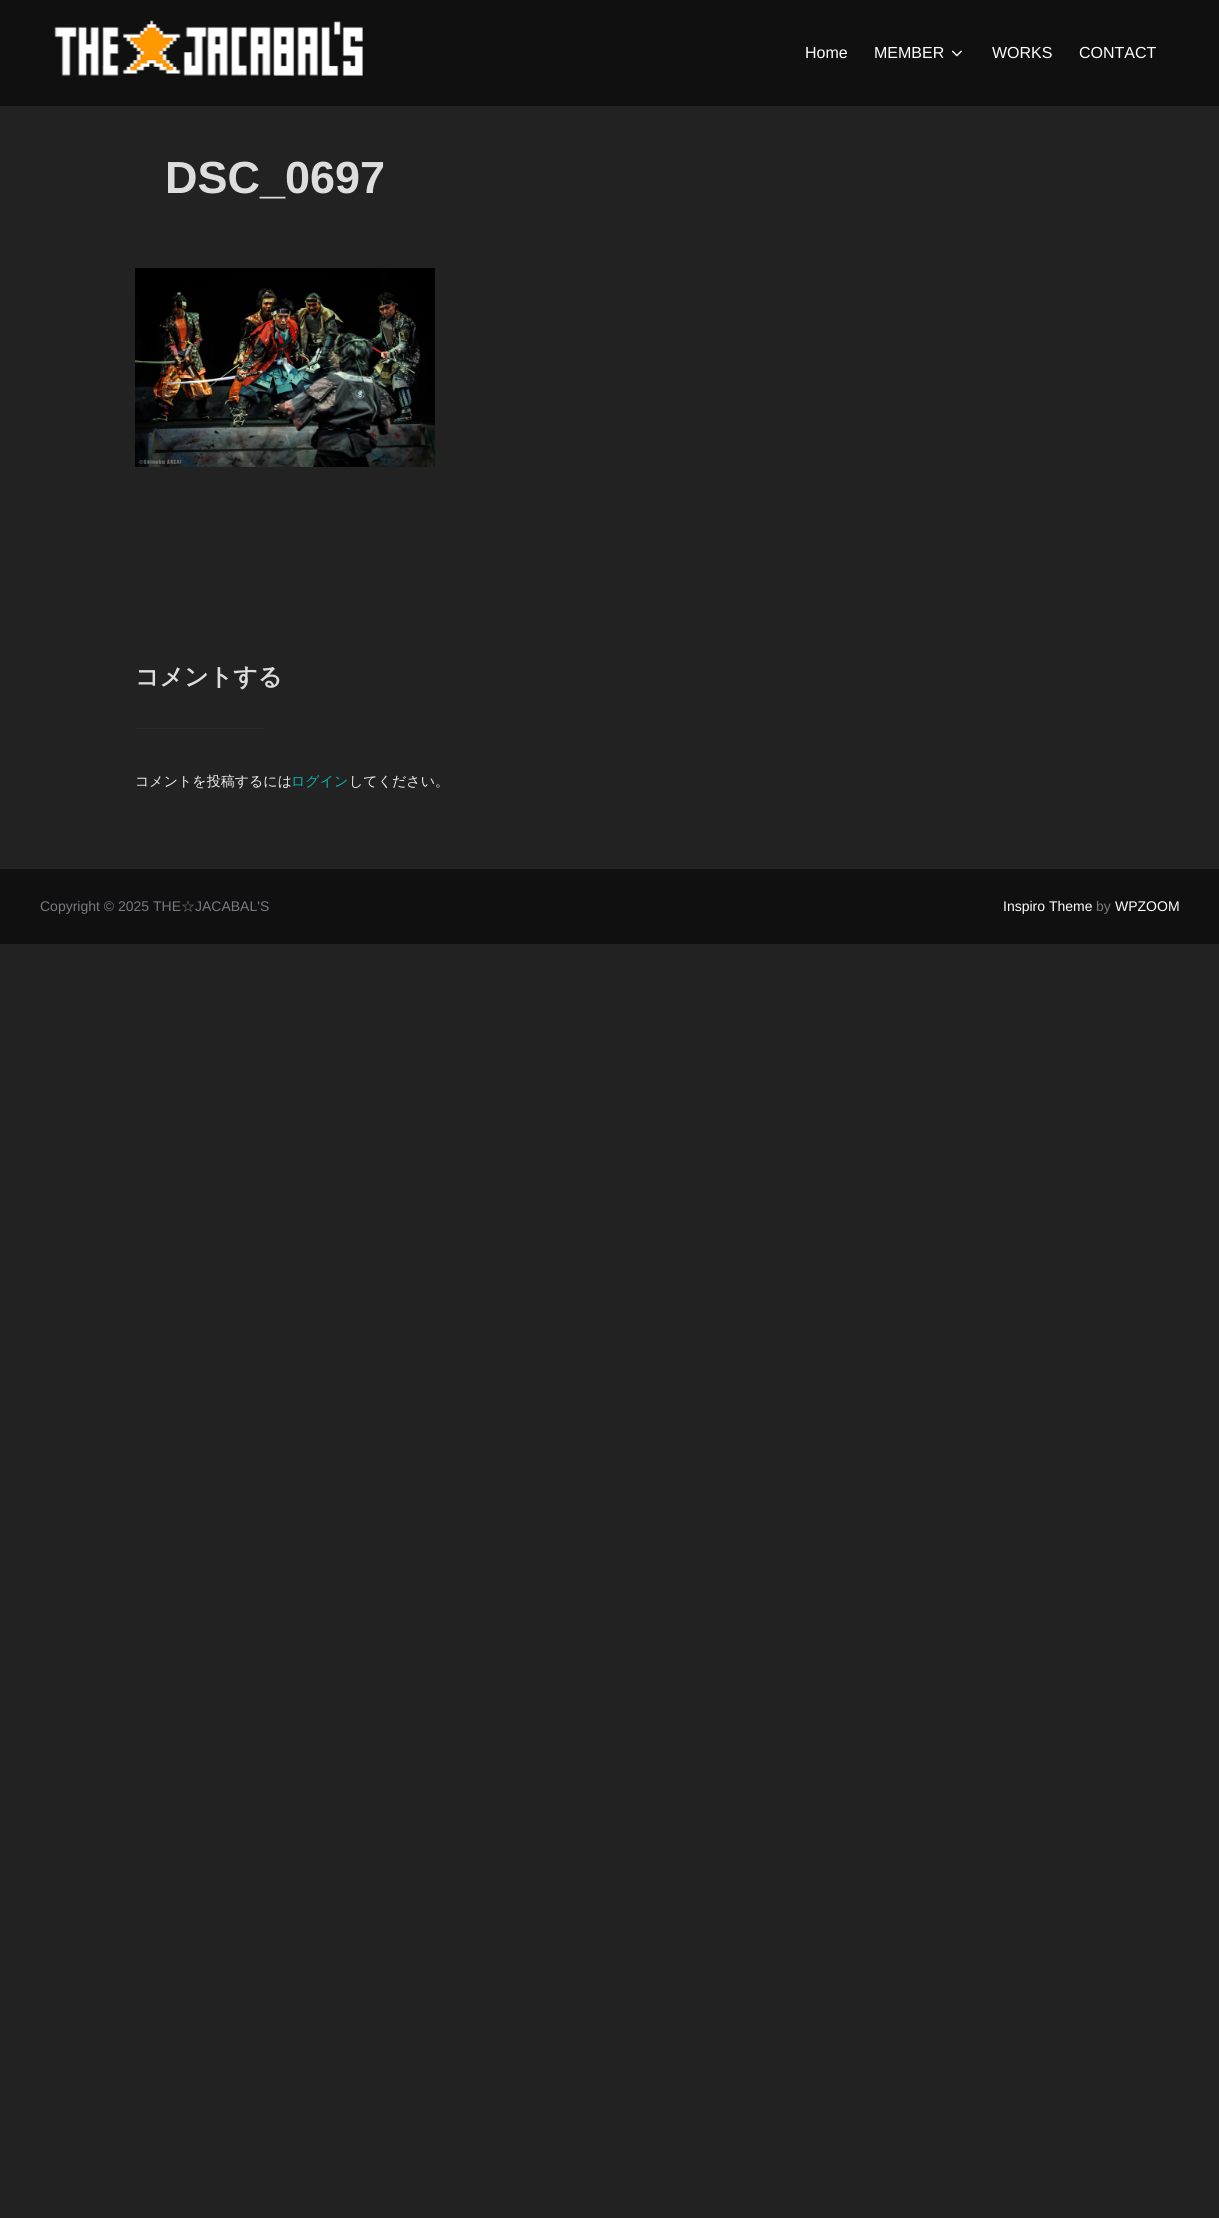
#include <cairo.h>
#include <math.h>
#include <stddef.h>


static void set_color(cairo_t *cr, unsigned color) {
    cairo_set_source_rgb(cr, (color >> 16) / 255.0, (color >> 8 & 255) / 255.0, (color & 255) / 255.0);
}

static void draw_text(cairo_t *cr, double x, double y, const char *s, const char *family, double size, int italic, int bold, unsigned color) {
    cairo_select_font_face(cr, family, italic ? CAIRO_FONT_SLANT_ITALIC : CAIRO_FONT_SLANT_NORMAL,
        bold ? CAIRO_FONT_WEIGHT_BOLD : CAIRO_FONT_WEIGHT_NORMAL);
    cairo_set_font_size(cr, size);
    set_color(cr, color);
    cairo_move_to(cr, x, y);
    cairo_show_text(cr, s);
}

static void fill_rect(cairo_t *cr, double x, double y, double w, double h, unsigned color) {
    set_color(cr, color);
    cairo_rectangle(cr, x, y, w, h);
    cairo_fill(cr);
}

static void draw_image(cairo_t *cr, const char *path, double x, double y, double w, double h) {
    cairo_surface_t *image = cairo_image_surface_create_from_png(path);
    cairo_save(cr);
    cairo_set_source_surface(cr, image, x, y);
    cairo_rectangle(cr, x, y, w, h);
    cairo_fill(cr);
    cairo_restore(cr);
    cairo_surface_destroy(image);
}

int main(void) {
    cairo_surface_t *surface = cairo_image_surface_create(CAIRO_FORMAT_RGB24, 1219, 2218);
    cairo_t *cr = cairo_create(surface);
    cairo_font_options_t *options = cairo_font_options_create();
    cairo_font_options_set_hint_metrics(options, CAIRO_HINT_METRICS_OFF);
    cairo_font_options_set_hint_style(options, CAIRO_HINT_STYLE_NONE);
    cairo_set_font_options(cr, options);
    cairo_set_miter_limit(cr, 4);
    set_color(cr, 0x222222);
    cairo_paint(cr);
    fill_rect(cr, 0, 0, 1219, 106, 0x101010);
    draw_image(cr, "assets/img1.png", 54, 20, 309, 56);
    draw_text(cr, 805, 58, "Home", "Liberation Sans", 16, 0, 0, 0xFFFFFF);
    draw_text(cr, 874, 58, "MEMBER", "Liberation Sans", 16, 0, 0, 0xFFFFFF);
    draw_image(cr, "assets/img2.png", 951, 50, 11, 7);
    draw_text(cr, 992, 58, "WORKS", "Liberation Sans", 16, 0, 0, 0xFFFFFF);
    draw_text(cr, 1079, 58, "CONTACT", "Liberation Sans", 16, 0, 0, 0xFFFFFF);
    draw_text(cr, 165, 193, "DSC_0697", "Liberation Sans", 45, 0, 1, 0xDDDDDD);
    draw_image(cr, "assets/img3.png", 135, 268, 300, 199);
    draw_text(cr, 135, 685, "コメントする", "WenQuanYi Zen Hei", 24, 0, 1, 0xDDDDDD);
    fill_rect(cr, 135, 728, 130, 1, 0x282828);
    draw_text(cr, 135, 786, "コメントを投稿するには", "WenQuanYi Zen Hei Medium", 14, 0, 0, 0xEEEEEE);
    draw_text(cr, 291, 786, "ログイン", "WenQuanYi Zen Hei Medium", 14, 0, 0, 0x0BB4AA);
    draw_text(cr, 349, 786, "してください。", "WenQuanYi Zen Hei Medium", 14, 0, 0, 0xEEEEEE);
    fill_rect(cr, 0, 869, 1219, 75, 0x101010);
    draw_text(cr, 40, 911, "Copyright © 2025 THE", "Liberation Sans", 14, 0, 0, 0x78787F);
    draw_text(cr, 181, 911, "☆", "WenQuanYi Zen Hei Medium", 14, 0, 0, 0x78787F);
    draw_text(cr, 195, 911, "JACABAL'S", "Liberation Sans", 14, 0, 0, 0x78787F);
    draw_text(cr, 1003, 911, "Inspiro Theme", "Liberation Sans", 14, 0, 0, 0xFFFFFF);
    draw_text(cr, 1096, 911, "by", "Liberation Sans", 14, 0, 0, 0x78787F);
    draw_text(cr, 1115, 911, "WPZOOM", "Liberation Sans", 14, 0, 0, 0xFFFFFF);
    cairo_surface_write_to_png(surface, "output.png");
    cairo_font_options_destroy(options);
    cairo_destroy(cr);
    cairo_surface_destroy(surface);
    return 0;
}
